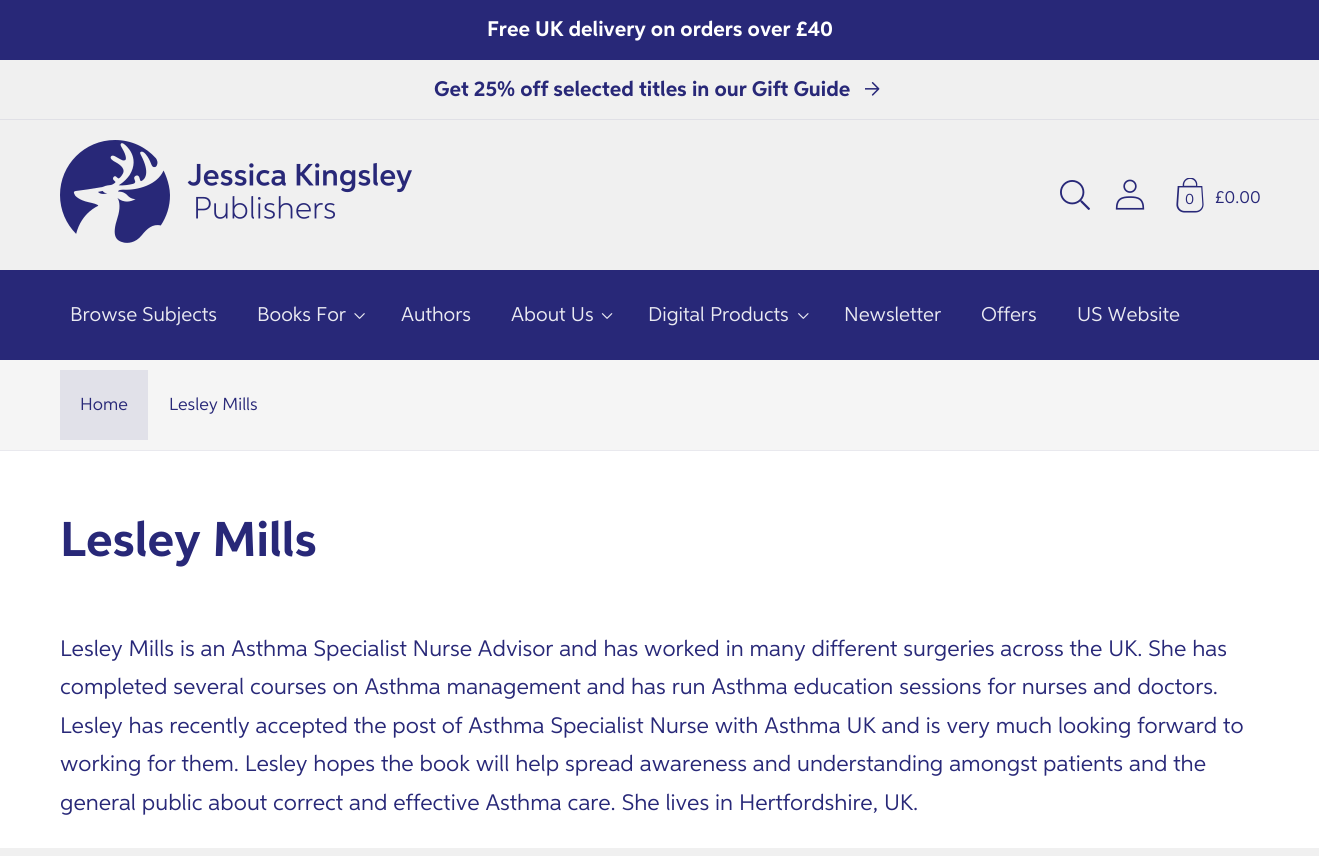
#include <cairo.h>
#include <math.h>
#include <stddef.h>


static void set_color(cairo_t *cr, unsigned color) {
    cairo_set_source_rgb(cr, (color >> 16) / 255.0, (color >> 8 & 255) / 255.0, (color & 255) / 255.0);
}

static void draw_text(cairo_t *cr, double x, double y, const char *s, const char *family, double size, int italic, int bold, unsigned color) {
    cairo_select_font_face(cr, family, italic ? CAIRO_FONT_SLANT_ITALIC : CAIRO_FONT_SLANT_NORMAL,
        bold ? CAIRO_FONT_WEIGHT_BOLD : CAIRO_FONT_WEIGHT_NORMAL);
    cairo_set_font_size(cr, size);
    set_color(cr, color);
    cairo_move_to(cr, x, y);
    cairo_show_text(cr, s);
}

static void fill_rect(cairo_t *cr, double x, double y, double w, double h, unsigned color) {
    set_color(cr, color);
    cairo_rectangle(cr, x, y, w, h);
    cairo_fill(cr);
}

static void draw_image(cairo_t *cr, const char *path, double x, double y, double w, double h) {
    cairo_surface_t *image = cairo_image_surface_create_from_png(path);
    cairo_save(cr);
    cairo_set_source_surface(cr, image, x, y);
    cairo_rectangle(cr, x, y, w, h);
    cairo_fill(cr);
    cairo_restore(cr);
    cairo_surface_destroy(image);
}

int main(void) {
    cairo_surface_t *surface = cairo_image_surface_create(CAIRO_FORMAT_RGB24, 1319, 856);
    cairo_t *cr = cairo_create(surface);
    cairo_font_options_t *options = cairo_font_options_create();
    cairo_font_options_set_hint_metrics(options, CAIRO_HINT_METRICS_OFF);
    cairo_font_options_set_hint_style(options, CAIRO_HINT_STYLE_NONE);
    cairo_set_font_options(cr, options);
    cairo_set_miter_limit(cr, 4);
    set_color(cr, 0xF0F0F0);
    cairo_paint(cr);
    fill_rect(cr, 0, 0, 1319, 60, 0x282878);
    draw_text(cr, 487, 36, "Free UK delivery on orders over £40", "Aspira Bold", 21.25, 0, 1, 0xFFFFFF);
    fill_rect(cr, 0, 119, 1319, 1, 0xE0E0E6);
    draw_text(cr, 434, 96, "Get 25% off selected titles in our Gift Guide", "Aspira Bold", 21.25, 0, 1, 0x282878);
    draw_image(cr, "assets/img1.png", 865, 82, 15, 14);
    draw_image(cr, "assets/img2.png", 60, 140, 352, 103);
    draw_image(cr, "assets/img3.png", 1060, 180, 30, 30);
    draw_image(cr, "assets/img4.png", 1115, 179, 30, 31);
    draw_image(cr, "assets/img5.png", 1176, 178, 28, 35);
    draw_text(cr, 1185, 204, "0", "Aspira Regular", 15, 0, 0, 0x282878);
    draw_text(cr, 1215, 203, "£0.00", "Aspira Regular", 17.5, 0, 0, 0x282878);
    fill_rect(cr, 0, 270, 1319, 90, 0x282878);
    draw_text(cr, 70, 321, "Browse Subjects", "Aspira Regular", 20, 0, 0, 0xEAEAF2);
    draw_text(cr, 257, 321, "Books For", "Aspira Regular", 20, 0, 0, 0xEAEAF2);
    draw_image(cr, "assets/img6.png", 354, 313, 11, 6);
    draw_text(cr, 401, 321, "Authors", "Aspira Regular", 20, 0, 0, 0xEAEAF2);
    draw_text(cr, 511, 321, "About Us", "Aspira Regular", 20, 0, 0, 0xEAEAF2);
    draw_image(cr, "assets/img7.png", 601, 313, 12, 6);
    draw_text(cr, 648, 321, "Digital Products", "Aspira Regular", 20, 0, 0, 0xEAEAF2);
    draw_image(cr, "assets/img8.png", 798, 313, 11, 6);
    draw_text(cr, 844, 321, "Newsletter", "Aspira Regular", 20, 0, 0, 0xEAEAF2);
    draw_text(cr, 981, 321, "Offers", "Aspira Regular", 20, 0, 0, 0xEAEAF2);
    draw_text(cr, 1077, 321, "US Website", "Aspira Regular", 20, 0, 0, 0xEAEAF2);
    fill_rect(cr, 0, 360, 1319, 90, 0xF5F5F5);
    fill_rect(cr, 0, 450, 1319, 1, 0xE9E9EE);
    fill_rect(cr, 60, 370, 88, 70, 0xE1E1E9);
    draw_text(cr, 80, 410, "Home", "Aspira Regular", 17.5, 0, 0, 0x282878);
    draw_text(cr, 169, 410, "Lesley Mills", "Aspira Regular", 17.5, 0, 0, 0x282878);
    fill_rect(cr, 0, 451, 1319, 397, 0xFFFFFF);
    draw_text(cr, 60, 556, "Lesley Mills", "Aspira Bold", 49, 0, 1, 0x282878);
    draw_text(cr, 60, 656, "Lesley Mills is an Asthma Specialist Nurse Advisor and has worked in many different surgeries across the UK. She has", "Aspira Regular", 22.5, 0, 0, 0x282878);
    draw_text(cr, 60, 694, "completed several courses on Asthma management and has run Asthma education sessions for nurses and doctors.", "Aspira Regular", 22.5, 0, 0, 0x282878);
    draw_text(cr, 60, 733, "Lesley has recently accepted the post of Asthma Specialist Nurse with Asthma UK and is very much looking forward to", "Aspira Regular", 22.5, 0, 0, 0x282878);
    draw_text(cr, 60, 771, "working for them. Lesley hopes the book will help spread awareness and understanding amongst patients and the", "Aspira Regular", 22.5, 0, 0, 0x282878);
    draw_text(cr, 60, 810, "general public about correct and effective Asthma care. She lives in Hertfordshire, UK.", "Aspira Regular", 22.5, 0, 0, 0x282878);
    cairo_surface_write_to_png(surface, "output.png");
    cairo_font_options_destroy(options);
    cairo_destroy(cr);
    cairo_surface_destroy(surface);
    return 0;
}
